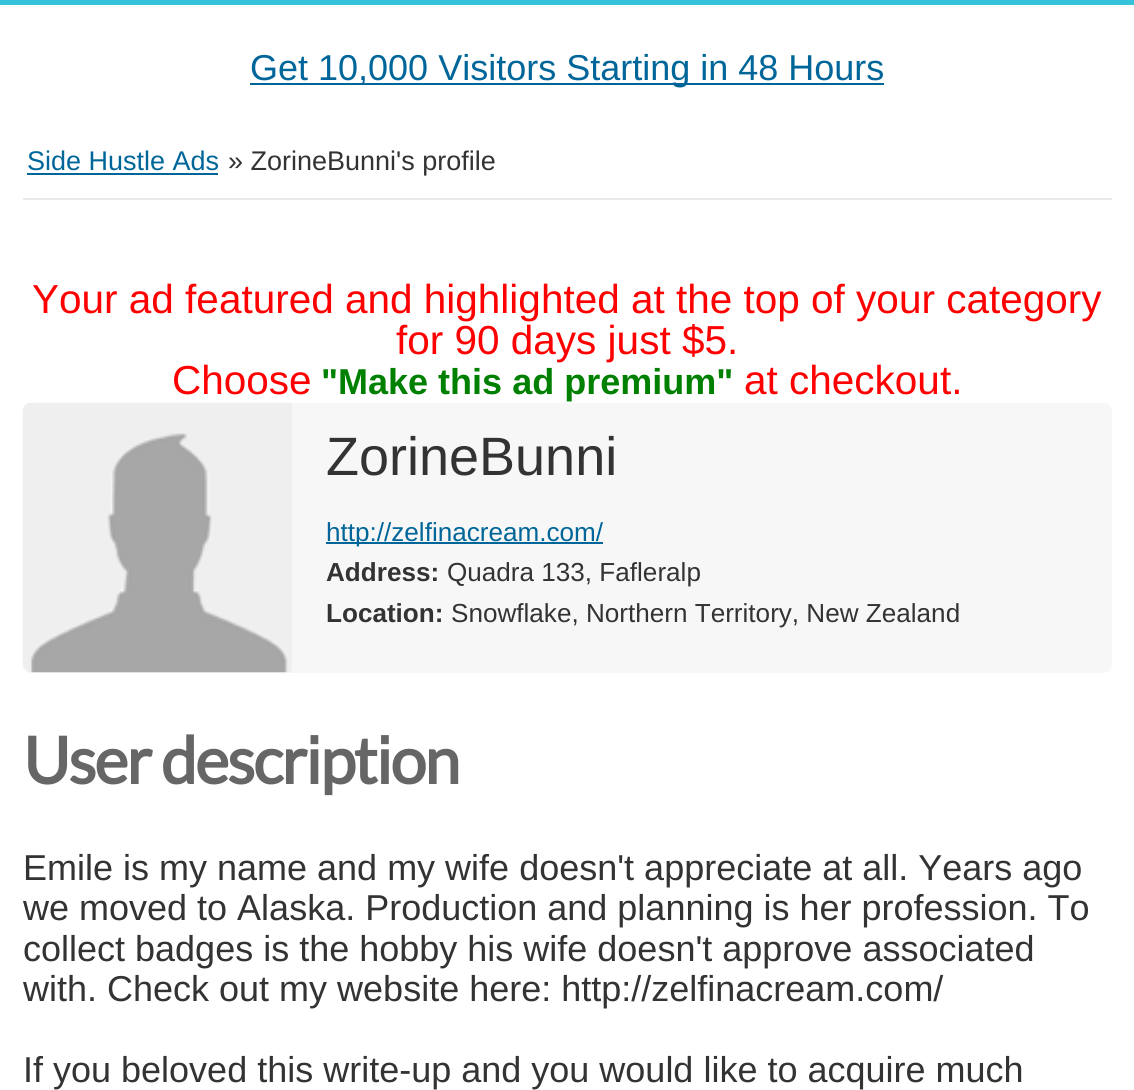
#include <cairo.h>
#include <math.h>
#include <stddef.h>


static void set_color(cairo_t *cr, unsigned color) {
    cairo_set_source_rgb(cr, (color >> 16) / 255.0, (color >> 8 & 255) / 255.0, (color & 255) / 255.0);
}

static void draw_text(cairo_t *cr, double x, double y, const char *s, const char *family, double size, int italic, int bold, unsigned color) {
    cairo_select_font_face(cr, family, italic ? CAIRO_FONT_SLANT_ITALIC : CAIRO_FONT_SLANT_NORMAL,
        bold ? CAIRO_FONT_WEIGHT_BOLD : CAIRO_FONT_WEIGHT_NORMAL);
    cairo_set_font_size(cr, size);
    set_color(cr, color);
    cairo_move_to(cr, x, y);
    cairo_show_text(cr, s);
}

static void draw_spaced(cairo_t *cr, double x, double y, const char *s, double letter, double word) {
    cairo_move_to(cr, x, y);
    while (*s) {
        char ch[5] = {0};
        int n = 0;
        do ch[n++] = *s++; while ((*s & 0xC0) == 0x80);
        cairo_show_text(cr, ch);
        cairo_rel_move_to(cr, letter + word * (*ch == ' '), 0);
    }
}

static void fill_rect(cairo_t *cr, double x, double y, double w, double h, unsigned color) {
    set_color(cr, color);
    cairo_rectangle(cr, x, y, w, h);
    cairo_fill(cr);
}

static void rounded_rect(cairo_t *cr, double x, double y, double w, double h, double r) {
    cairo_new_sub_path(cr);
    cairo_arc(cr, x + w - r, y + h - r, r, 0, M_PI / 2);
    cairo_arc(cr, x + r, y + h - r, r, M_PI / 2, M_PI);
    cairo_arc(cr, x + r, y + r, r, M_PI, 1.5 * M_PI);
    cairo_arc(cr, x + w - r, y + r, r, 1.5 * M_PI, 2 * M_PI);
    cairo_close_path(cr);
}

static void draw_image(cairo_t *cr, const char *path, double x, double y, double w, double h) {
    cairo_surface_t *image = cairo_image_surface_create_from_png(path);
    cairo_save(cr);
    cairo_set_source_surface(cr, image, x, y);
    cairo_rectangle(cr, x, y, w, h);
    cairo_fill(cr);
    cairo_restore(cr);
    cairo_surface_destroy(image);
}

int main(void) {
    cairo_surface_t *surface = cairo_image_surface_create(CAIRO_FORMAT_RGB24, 1134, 1090);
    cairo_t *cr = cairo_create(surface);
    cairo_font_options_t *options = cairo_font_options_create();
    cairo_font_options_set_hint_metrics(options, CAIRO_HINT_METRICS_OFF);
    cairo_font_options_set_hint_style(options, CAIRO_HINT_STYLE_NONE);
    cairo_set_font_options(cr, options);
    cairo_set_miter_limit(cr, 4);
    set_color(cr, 0xFFFFFF);
    cairo_paint(cr);
    fill_rect(cr, 0, 0, 1134, 5, 0x35C3D9);
    fill_rect(cr, 250, 83, 634, 2, 0x006699);
    draw_text(cr, 250, 80, "Get 10,000 Visitors Starting in 48 Hours", "Liberation Sans", 36, 0, 0, 0x006699);
    fill_rect(cr, 23, 198, 1089, 2, 0xEAEAEA);
    draw_text(cr, 27, 170, "Side Hustle Ads", "Liberation Sans", 27, 0, 0, 0x006699);
    fill_rect(cr, 27, 173, 191, 2, 0x006699);
    draw_text(cr, 228, 170, "» ZorineBunni's profile", "Liberation Sans", 27, 0, 0, 0x333333);
    draw_text(cr, 32, 313, "Your ad featured and highlighted at the top of your category", "Liberation Sans", 40.5, 0, 0, 0xFF0000);
    draw_text(cr, 396, 354, "for 90 days just $5.", "Liberation Sans", 40.5, 0, 0, 0xFF0000);
    draw_text(cr, 172, 394, "Choose", "Liberation Sans", 40.5, 0, 0, 0xFF0000);
    draw_text(cr, 321, 394, "\"Make this ad premium\"", "Liberation Sans", 36, 0, 1, 0x008000);
    draw_text(cr, 744, 394, "at checkout.", "Liberation Sans", 40.5, 0, 0, 0xFF0000);
    set_color(cr, 0xF7F7F7);
    rounded_rect(cr, 23, 403, 1089, 270, 9);
    cairo_fill(cr);
    draw_image(cr, "assets/img1.png", 22, 402, 270, 271);
    draw_text(cr, 326, 475, "ZorineBunni", "Liberation Sans", 54, 0, 0, 0x333333);
    fill_rect(cr, 326, 542, 277, 2, 0x006699);
    draw_text(cr, 326, 541, "http://zelfinacream.com/", "Liberation Sans", 26.1, 0, 0, 0x006699);
    draw_text(cr, 326, 581, "Address:", "Liberation Sans", 26.1, 0, 1, 0x333333);
    draw_text(cr, 447, 581, "Quadra 133, Fafleralp", "Liberation Sans", 26.1, 0, 0, 0x333333);
    draw_text(cr, 326, 622, "Location:", "Liberation Sans", 26.1, 0, 1, 0x333333);
    draw_text(cr, 451, 622, "Snowflake, Northern Territory, New Zealand", "Liberation Sans", 26.1, 0, 0, 0x333333);
    cairo_select_font_face(cr, "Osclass", CAIRO_FONT_SLANT_NORMAL, CAIRO_FONT_WEIGHT_BOLD);
    cairo_set_font_size(cr, 64.75);
    set_color(cr, 0x666666);
    draw_spaced(cr, 23, 784, "User description", -2, 0);
    draw_text(cr, 23, 880, "Emile is my name and my wife doesn't appreciate at all. Years ago", "Liberation Sans", 36, 0, 0, 0x333333);
    draw_text(cr, 23, 920, "we moved to Alaska. Production and planning is her profession. To", "Liberation Sans", 36, 0, 0, 0x333333);
    draw_text(cr, 23, 961, "collect badges is the hobby his wife doesn't approve associated", "Liberation Sans", 36, 0, 0, 0x333333);
    draw_text(cr, 23, 1001, "with. Check out my website here: http://zelfinacream.com/", "Liberation Sans", 36, 0, 0, 0x333333);
    draw_text(cr, 23, 1082, "If you beloved this write-up and you would like to acquire much", "Liberation Sans", 36, 0, 0, 0x333333);
    cairo_surface_write_to_png(surface, "output.png");
    cairo_font_options_destroy(options);
    cairo_destroy(cr);
    cairo_surface_destroy(surface);
    return 0;
}
